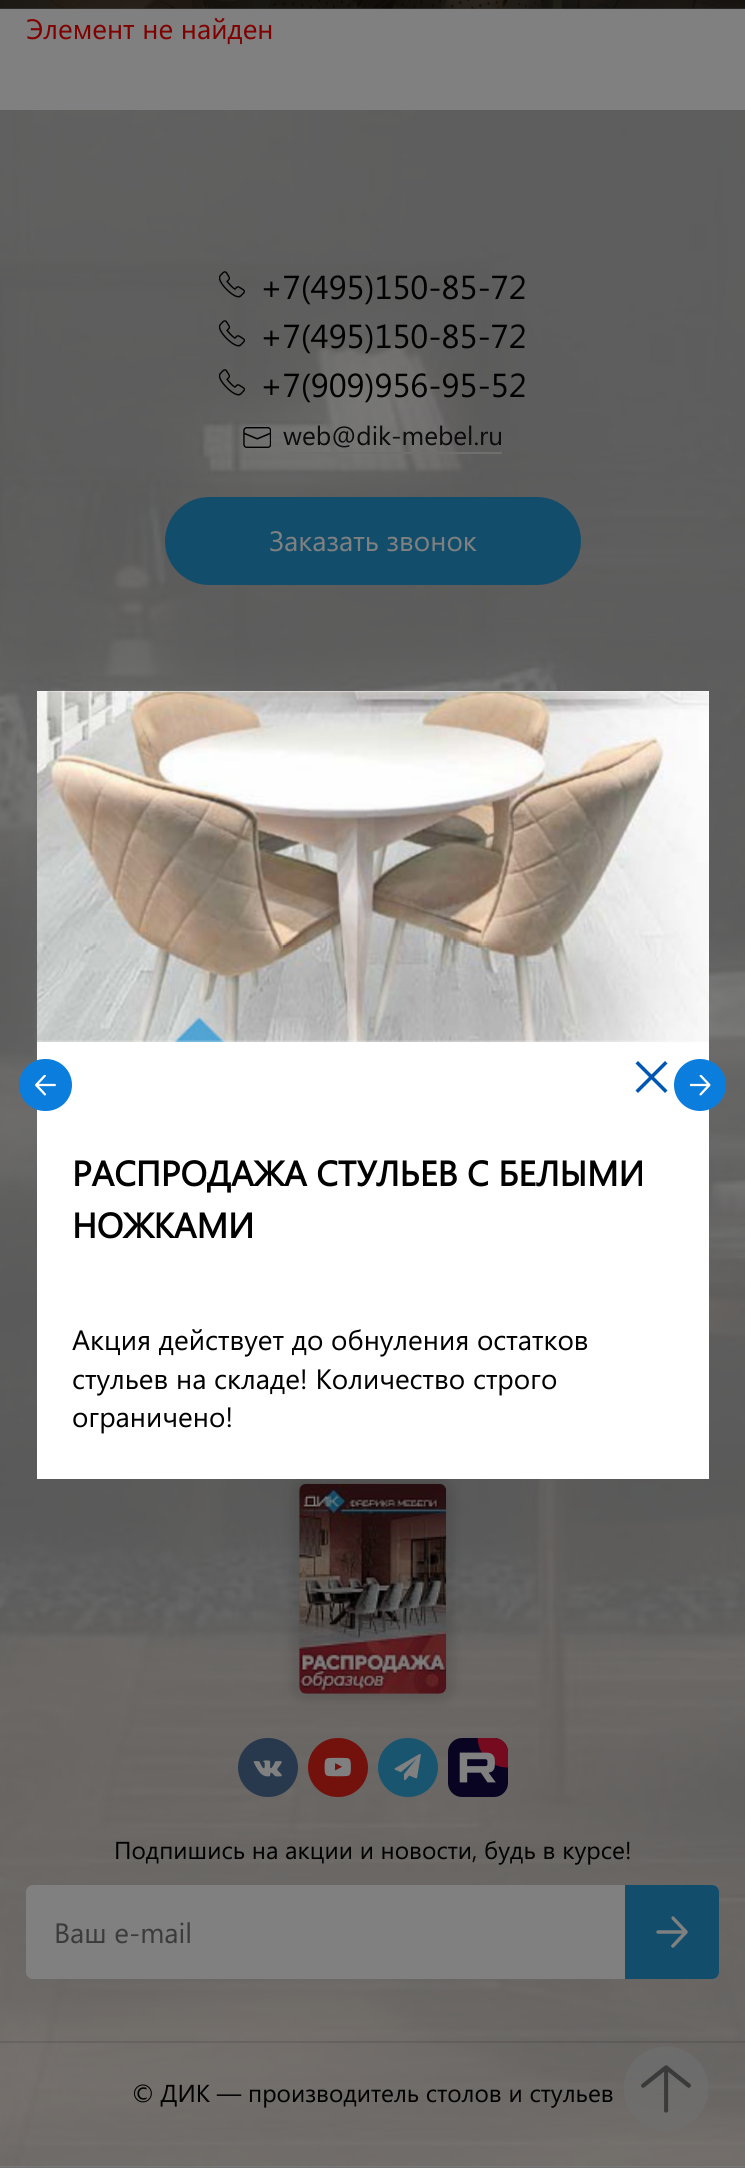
#include <cairo.h>
#include <math.h>
#include <stddef.h>


static void set_color(cairo_t *cr, unsigned color) {
    cairo_set_source_rgb(cr, (color >> 16) / 255.0, (color >> 8 & 255) / 255.0, (color & 255) / 255.0);
}

static void draw_text(cairo_t *cr, double x, double y, const char *s, const char *family, double size, int italic, int bold, unsigned color) {
    cairo_select_font_face(cr, family, italic ? CAIRO_FONT_SLANT_ITALIC : CAIRO_FONT_SLANT_NORMAL,
        bold ? CAIRO_FONT_WEIGHT_BOLD : CAIRO_FONT_WEIGHT_NORMAL);
    cairo_set_font_size(cr, size);
    set_color(cr, color);
    cairo_move_to(cr, x, y);
    cairo_show_text(cr, s);
}

static void fill_rect(cairo_t *cr, double x, double y, double w, double h, unsigned color) {
    set_color(cr, color);
    cairo_rectangle(cr, x, y, w, h);
    cairo_fill(cr);
}

static void rounded_rect(cairo_t *cr, double x, double y, double w, double h, double r) {
    cairo_new_sub_path(cr);
    cairo_arc(cr, x + w - r, y + h - r, r, 0, M_PI / 2);
    cairo_arc(cr, x + r, y + h - r, r, M_PI / 2, M_PI);
    cairo_arc(cr, x + r, y + r, r, M_PI, 1.5 * M_PI);
    cairo_arc(cr, x + w - r, y + r, r, 1.5 * M_PI, 2 * M_PI);
    cairo_close_path(cr);
}

static void draw_shadow(cairo_t *cr, double x, double y, double w, double h, double r, double blur, double alpha) {
    cairo_push_group_with_content(cr, CAIRO_CONTENT_ALPHA);
    cairo_set_operator(cr, CAIRO_OPERATOR_SOURCE);
    for (int i = 15; i >= -15 && fmin(w, h) + blur * i / 3 > 0; i -= 2) {
        double e = blur * i / 6;
        cairo_set_source_rgba(cr, 0, 0, 0, alpha * erfc((i - 1) / 8.5) / 2);
        rounded_rect(cr, x - e, y - e, w + 2 * e, h + 2 * e, fmax(0, fmin(r + e + blur * .6, fmin(w, h) / 2 + e)));
        cairo_fill(cr);
    }
    cairo_pattern_t *soft = cairo_pop_group(cr);
    cairo_mask(cr, soft);
    cairo_pattern_destroy(soft);
}

static void draw_image(cairo_t *cr, const char *path, double x, double y, double w, double h) {
    cairo_surface_t *image = cairo_image_surface_create_from_png(path);
    cairo_save(cr);
    cairo_set_source_surface(cr, image, x, y);
    cairo_rectangle(cr, x, y, w, h);
    cairo_fill(cr);
    cairo_restore(cr);
    cairo_surface_destroy(image);
}

int main(void) {
    cairo_surface_t *surface = cairo_image_surface_create(CAIRO_FORMAT_RGB24, 745, 2168);
    cairo_t *cr = cairo_create(surface);
    cairo_font_options_t *options = cairo_font_options_create();
    cairo_font_options_set_hint_metrics(options, CAIRO_HINT_METRICS_OFF);
    cairo_font_options_set_hint_style(options, CAIRO_HINT_STYLE_NONE);
    cairo_set_font_options(cr, options);
    cairo_set_miter_limit(cr, 4);
    set_color(cr, 0x808080);
    cairo_paint(cr);
    fill_rect(cr, 0, 8, 745, 1, 0x3A3A3A);
    draw_image(cr, "assets/img1.png", 0, 0, 745, 9);
    draw_text(cr, 26, 39, "Элемент не найден", "Segoe UI", 28, 0, 0, 0x800000);
    fill_rect(cr, 0, 2166, 745, 1, 0x787878);
    draw_image(cr, "assets/img2.png", 0, 110, 745, 2057);
    draw_image(cr, "assets/img3.png", 219, 271, 26, 27);
    draw_text(cr, 260, 299, "+7(495)150-85-72", "Segoe UI", 33.25, 0, 0, 0x000000);
    draw_image(cr, "assets/img4.png", 219, 320, 26, 27);
    draw_text(cr, 260, 348, "+7(495)150-85-72", "Segoe UI", 33.25, 0, 0, 0x000000);
    draw_image(cr, "assets/img5.png", 219, 369, 26, 27);
    draw_text(cr, 260, 397, "+7(909)956-95-52", "Segoe UI", 33.25, 0, 0, 0x000000);
    draw_image(cr, "assets/img6.png", 243, 427, 28, 21);
    draw_text(cr, 283, 445, "web@dik-mebel.ru", "Segoe UI", 26.25, 0, 0, 0x0C0C0C);
    fill_rect(cr, 284, 452, 218, 2, 0x6F6F6F);
    set_color(cr, 0x124E6C);
    rounded_rect(cr, 165, 497, 416, 88, 44);
    cairo_fill(cr);
    draw_text(cr, 269, 551, "Заказать звонок", "Segoe UI", 28, 0, 0, 0x808080);
    set_color(cr, 0x191919);
    draw_shadow(cr, 292, 1250, 161, 224, 14, 6, 0.15);
    draw_shadow(cr, 292, 1477, 161, 224, 14, 6, 0.15);
    draw_image(cr, "assets/img7.png", 299, 1483, 148, 211);
    set_color(cr, 0x28394D);
    rounded_rect(cr, 238, 1738, 60, 59, 29.5);
    cairo_fill(cr);
    draw_image(cr, "assets/img8.png", 253, 1760, 29, 17);
    set_color(cr, 0x73110C);
    rounded_rect(cr, 308, 1738, 60, 59, 29.5);
    cairo_fill(cr);
    draw_image(cr, "assets/img9.png", 324, 1757, 27, 20);
    set_color(cr, 0x1A5570);
    rounded_rect(cr, 378, 1738, 60, 59, 29.5);
    cairo_fill(cr);
    draw_image(cr, "assets/img10.png", 394, 1754, 27, 27);
    draw_image(cr, "assets/img11.png", 448, 1738, 60, 59);
    draw_text(cr, 114, 1859, "Подпишись на акции и новости, будь в курсе!", "Segoe UI", 24.5, 0, 0, 0x000000);
    set_color(cr, 0x808080);
    rounded_rect(cr, 26, 1885, 693, 94, 7);
    cairo_fill(cr);
    draw_text(cr, 54, 1943, "Ваш e-mail", "Segoe UI", 28, 0, 0, 0x3B3B3B);
    set_color(cr, 0x124E6C);
    cairo_new_path(cr);
    cairo_move_to(cr, 625, 1885);
    cairo_line_to(cr, 712, 1885);
    cairo_curve_to(cr, 716, 1885, 719, 1888, 719, 1892);
    cairo_line_to(cr, 719, 1972);
    cairo_curve_to(cr, 719, 1976, 716, 1979, 712, 1979);
    cairo_line_to(cr, 625, 1979);
    cairo_close_path(cr);
    cairo_fill(cr);
    draw_image(cr, "assets/img12.png", 656, 1916, 32, 32);
    cairo_set_source_rgba(cr, 0, 0, 0, 0.1);
    cairo_rectangle(cr, 0, 2041, 745, 2);
    cairo_fill(cr);
    draw_text(cr, 132, 2102, "© ДИК — производитель столов и стульев", "Segoe UI", 24.5, 0, 0, 0x000000);
    fill_rect(cr, 0, 2167, 745, 1, 0x6F6F6F);
    fill_rect(cr, 37, 691, 672, 788, 0xFFFFFF);
    set_color(cr, 0x0A7DDD);
    rounded_rect(cr, 19, 1059, 53, 52, 26);
    cairo_fill(cr);
    draw_image(cr, "assets/img13.png", 35, 1075, 21, 21);
    cairo_arc(cr, 700, 1085, 26, 0, 2 * M_PI);
    cairo_fill(cr);
    draw_image(cr, "assets/img14.png", 690, 1075, 21, 21);
    draw_image(cr, "assets/img15.png", 37, 691, 672, 351);
    set_color(cr, 0x0056B3);
    cairo_new_path(cr);
    cairo_move_to(cr, 638, 1061);
    cairo_line_to(cr, 667.5, 1090.5);
    cairo_line_to(cr, 665, 1093);
    cairo_line_to(cr, 635.5, 1063.5);
    cairo_close_path(cr);
    cairo_fill(cr);
    cairo_new_path(cr);
    cairo_move_to(cr, 635.5, 1090.5);
    cairo_line_to(cr, 665, 1061);
    cairo_line_to(cr, 667.5, 1063.5);
    cairo_line_to(cr, 638, 1093);
    cairo_close_path(cr);
    cairo_fill(cr);
    draw_text(cr, 72, 1186, "РАСПРОДАЖА СТУЛЬЕВ С БЕЛЫМИ", "Segoe UI", 35, 0, 1, 0x000000);
    draw_text(cr, 72, 1238, "НОЖКАМИ", "Segoe UI", 35, 0, 1, 0x000000);
    draw_text(cr, 72, 1350, "Акция действует до обнуления остатков", "Segoe UI", 28, 0, 0, 0x000000);
    draw_text(cr, 72, 1389, "стульев на складе! Количество строго", "Segoe UI", 28, 0, 0, 0x000000);
    draw_text(cr, 72, 1427, "ограничено!", "Segoe UI", 28, 0, 0, 0x000000);
    draw_image(cr, "assets/img16.png", 624, 2046, 85, 85);
    cairo_surface_write_to_png(surface, "output.png");
    cairo_font_options_destroy(options);
    cairo_destroy(cr);
    cairo_surface_destroy(surface);
    return 0;
}
